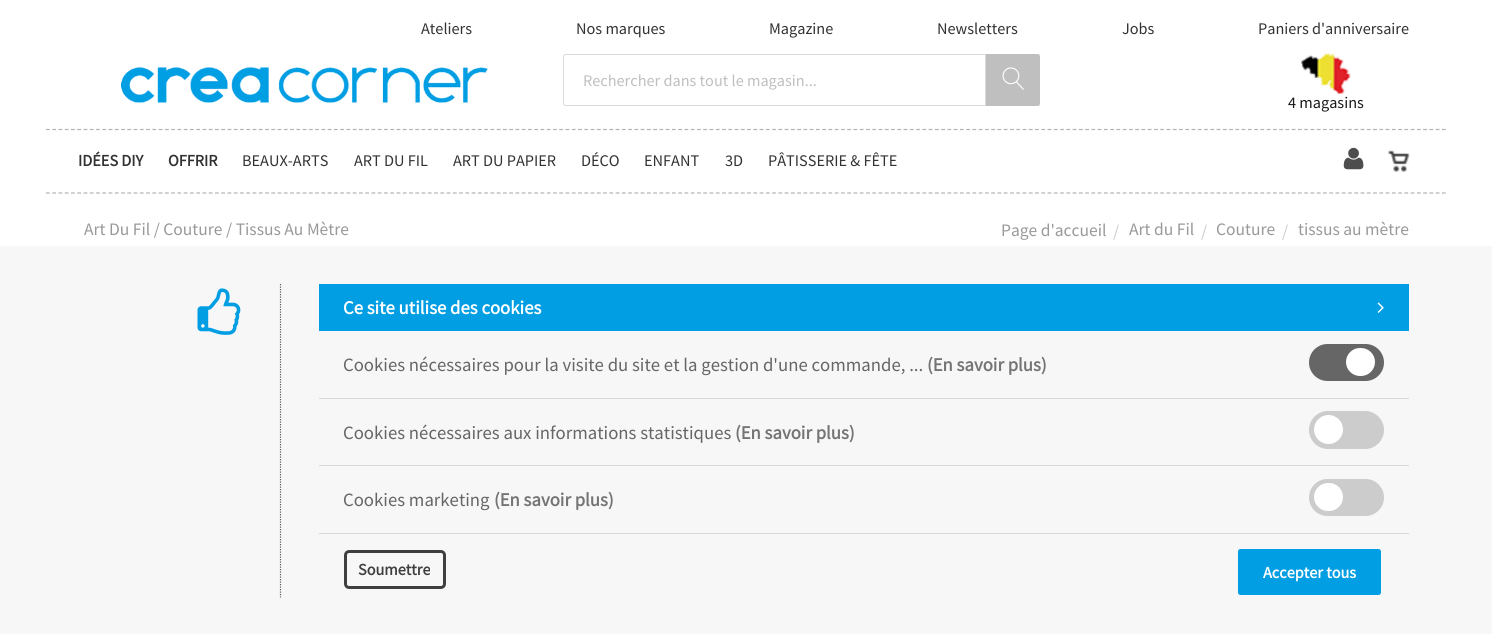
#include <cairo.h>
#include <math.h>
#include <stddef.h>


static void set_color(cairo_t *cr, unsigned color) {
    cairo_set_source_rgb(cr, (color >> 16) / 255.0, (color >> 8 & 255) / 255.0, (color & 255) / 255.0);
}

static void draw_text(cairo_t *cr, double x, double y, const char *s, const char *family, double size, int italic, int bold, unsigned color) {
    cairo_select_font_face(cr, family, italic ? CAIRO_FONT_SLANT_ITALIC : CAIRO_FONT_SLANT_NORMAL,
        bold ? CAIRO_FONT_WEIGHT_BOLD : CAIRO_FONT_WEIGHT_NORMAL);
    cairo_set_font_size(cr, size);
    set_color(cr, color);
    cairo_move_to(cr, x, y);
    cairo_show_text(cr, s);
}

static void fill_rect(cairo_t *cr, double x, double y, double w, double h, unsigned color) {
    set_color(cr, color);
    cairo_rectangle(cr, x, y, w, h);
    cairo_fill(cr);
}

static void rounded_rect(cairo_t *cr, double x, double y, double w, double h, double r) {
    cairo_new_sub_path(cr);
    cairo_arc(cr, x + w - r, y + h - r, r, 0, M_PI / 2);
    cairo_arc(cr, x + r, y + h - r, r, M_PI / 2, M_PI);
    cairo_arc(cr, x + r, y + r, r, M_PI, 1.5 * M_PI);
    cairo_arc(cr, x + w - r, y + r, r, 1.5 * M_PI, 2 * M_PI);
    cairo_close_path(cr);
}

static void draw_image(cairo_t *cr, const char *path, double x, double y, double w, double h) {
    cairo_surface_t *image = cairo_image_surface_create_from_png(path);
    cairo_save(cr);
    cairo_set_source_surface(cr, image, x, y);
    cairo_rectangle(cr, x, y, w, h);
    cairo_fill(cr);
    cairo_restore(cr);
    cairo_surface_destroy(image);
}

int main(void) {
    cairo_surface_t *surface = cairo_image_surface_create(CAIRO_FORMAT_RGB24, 1492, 634);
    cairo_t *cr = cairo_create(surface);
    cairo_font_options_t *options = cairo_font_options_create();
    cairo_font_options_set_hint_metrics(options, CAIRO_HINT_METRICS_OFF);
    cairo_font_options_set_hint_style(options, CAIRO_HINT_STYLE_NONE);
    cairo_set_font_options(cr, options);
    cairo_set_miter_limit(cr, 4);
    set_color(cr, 0xFFFFFF);
    cairo_paint(cr);
    draw_text(cr, 421, 34, "Ateliers", "Source Sans Pro", 16.25, 0, 0, 0x333333);
    draw_text(cr, 576, 34, "Nos marques", "Source Sans Pro", 16.25, 0, 0, 0x333333);
    draw_text(cr, 769, 34, "Magazine", "Source Sans Pro", 16.25, 0, 0, 0x333333);
    draw_text(cr, 937, 34, "Newsletters", "Source Sans Pro", 16.25, 0, 0, 0x333333);
    draw_text(cr, 1122, 34, "Jobs", "Source Sans Pro", 16.25, 0, 0, 0x333333);
    draw_text(cr, 1258, 34, "Paniers d'anniversaire", "Source Sans Pro", 16.25, 0, 0, 0x333333);
    draw_image(cr, "assets/img1.png", 121, 67, 367, 36);
    set_color(cr, 0xBFBFBF);
    cairo_new_path(cr);
    cairo_move_to(cr, 985, 54);
    cairo_line_to(cr, 1037.5, 54);
    cairo_curve_to(cr, 1039, 54, 1040, 55, 1040, 56.5);
    cairo_line_to(cr, 1040, 103.5);
    cairo_curve_to(cr, 1040, 105, 1039, 106, 1037.5, 106);
    cairo_line_to(cr, 985, 106);
    cairo_close_path(cr);
    cairo_fill(cr);
    cairo_new_path(cr);
    cairo_move_to(cr, 565.5, 54.5);
    cairo_line_to(cr, 985.5, 54.5);
    cairo_line_to(cr, 985.5, 105.5);
    cairo_line_to(cr, 565.5, 105.5);
    cairo_curve_to(cr, 564.5, 105.5, 563.5, 104.5, 563.5, 103.5);
    cairo_line_to(cr, 563.5, 56.5);
    cairo_curve_to(cr, 563.5, 55.5, 564.5, 54.5, 565.5, 54.5);
    cairo_close_path(cr);
    set_color(cr, 0xD9D9D9);
    cairo_set_line_width(cr, 1);
    cairo_stroke(cr);
    draw_text(cr, 583, 86, "Rechercher dans tout le magasin...", "Source Sans Pro", 16.25, 0, 0, 0xBFBFBF);
    draw_image(cr, "assets/img2.png", 1002, 67, 22, 23);
    draw_image(cr, "assets/img3.png", 1301, 53, 50, 41);
    draw_text(cr, 1288, 108, "4 magasins", "Source Sans Pro", 16.25, 0, 0, 0x1A1A1A);
    cairo_new_path(cr);
    cairo_move_to(cr, 46, 129.5);
    cairo_line_to(cr, 1446, 129.5);
    set_color(cr, 0xB3B3B3);
    cairo_set_line_width(cr, 1.2);
    cairo_set_dash(cr, (double[]){3.75, 2.51}, 2, 0);
    cairo_stroke(cr);
    cairo_new_path(cr);
    cairo_move_to(cr, 46, 193);
    cairo_line_to(cr, 1446, 193);
    cairo_stroke(cr);
    draw_text(cr, 78, 166, "IDÉES DIY", "Source Sans Pro", 16.25, 0, 1, 0x333333);
    draw_text(cr, 168, 166, "OFFRIR", "Source Sans Pro", 16.25, 0, 1, 0x333333);
    draw_text(cr, 242, 166, "BEAUX-ARTS", "Source Sans Pro", 16.25, 0, 0, 0x333333);
    draw_text(cr, 354, 166, "ART DU FIL", "Source Sans Pro", 16.25, 0, 0, 0x333333);
    draw_text(cr, 453, 166, "ART DU PAPIER", "Source Sans Pro", 16.25, 0, 0, 0x333333);
    draw_text(cr, 581, 166, "DÉCO", "Source Sans Pro", 16.25, 0, 0, 0x333333);
    draw_text(cr, 644, 166, "ENFANT", "Source Sans Pro", 16.25, 0, 0, 0x333333);
    draw_text(cr, 725, 166, "3D", "Source Sans Pro", 16.25, 0, 0, 0x333333);
    draw_text(cr, 768, 166, "PÂTISSERIE & FÊTE", "Source Sans Pro", 16.25, 0, 0, 0x333333);
    draw_image(cr, "assets/img4.png", 1343, 147, 21, 23);
    draw_image(cr, "assets/img5.png", 1388, 150, 22, 22);
    draw_text(cr, 84, 235, "Art Du Fil / Couture / Tissus Au Mètre", "Source Sans Pro", 17.5, 0, 0, 0x999999);
    draw_text(cr, 1001, 236, "Page d'accueil", "Source Sans Pro", 17.5, 0, 0, 0x999999);
    draw_text(cr, 1113, 237, "/", "Source Sans Pro", 17.5, 0, 0, 0xCCCCCC);
    draw_text(cr, 1129, 235, "Art du Fil", "Source Sans Pro", 17.5, 0, 0, 0x999999);
    draw_text(cr, 1201, 237, "/", "Source Sans Pro", 17.5, 0, 0, 0xCCCCCC);
    draw_text(cr, 1216, 235, "Couture", "Source Sans Pro", 17.5, 0, 0, 0x999999);
    draw_text(cr, 1282, 237, "/", "Source Sans Pro", 17.5, 0, 0, 0xCCCCCC);
    draw_text(cr, 1298, 235, "tissus au mètre", "Source Sans Pro", 17.5, 0, 0, 0x999999);
    fill_rect(cr, 0, 246, 1492, 388, 0xF7F7F7);
    draw_image(cr, "assets/img6.png", 197, 288, 44, 47);
    cairo_new_path(cr);
    cairo_move_to(cr, 280.5, 284);
    cairo_line_to(cr, 280.5, 597.5);
    set_color(cr, 0x595959);
    cairo_set_dash(cr, (double[]){1.25, 1.25}, 2, 0);
    cairo_stroke(cr);
    fill_rect(cr, 319, 284, 1090, 47, 0x019EE3);
    draw_text(cr, 343, 314, "Ce site utilise des cookies", "Source Sans Pro", 18.75, 0, 1, 0xFFFFFF);
    draw_image(cr, "assets/img7.png", 1377, 302, 7, 11);
    fill_rect(cr, 319, 398, 1090, 1, 0xD9D9D9);
    draw_text(cr, 343, 371, "Cookies nécessaires pour la visite du site et la gestion d'une commande, ...", "Source Sans Pro", 18.75, 0, 0, 0x666666);
    draw_text(cr, 927, 371, "(En savoir plus)", "Source Sans Pro", 18.75, 0, 1, 0x747474);
    set_color(cr, 0x666666);
    rounded_rect(cr, 1309, 344, 75, 37, 18.5);
    cairo_fill(cr);
    set_color(cr, 0xFFFFFF);
    rounded_rect(cr, 1346, 348, 29, 28, 14);
    cairo_fill(cr);
    fill_rect(cr, 319, 465, 1090, 1, 0xD9D9D9);
    draw_text(cr, 343, 439, "Cookies nécessaires aux informations statistiques", "Source Sans Pro", 18.75, 0, 0, 0x666666);
    draw_text(cr, 735, 439, "(En savoir plus)", "Source Sans Pro", 18.75, 0, 1, 0x747474);
    set_color(cr, 0xCCCCCC);
    rounded_rect(cr, 1309, 411, 75, 38, 19);
    cairo_fill(cr);
    set_color(cr, 0xFFFFFF);
    cairo_arc(cr, 1328.5, 429.5, 14.5, 0, 2 * M_PI);
    cairo_fill(cr);
    fill_rect(cr, 319, 533, 1090, 1, 0xD9D9D9);
    draw_text(cr, 343, 506, "Cookies marketing", "Source Sans Pro", 18.75, 0, 0, 0x666666);
    draw_text(cr, 494, 506, "(En savoir plus)", "Source Sans Pro", 18.75, 0, 1, 0x747474);
    set_color(cr, 0xCCCCCC);
    rounded_rect(cr, 1309, 479, 75, 37, 18.5);
    cairo_fill(cr);
    set_color(cr, 0xFFFFFF);
    rounded_rect(cr, 1314, 483, 29, 28, 14);
    cairo_fill(cr);
    rounded_rect(cr, 345.5, 551.5, 99, 36, 3.5);
    set_color(cr, 0x3F3F3F);
    cairo_set_line_width(cr, 3);
    cairo_set_dash(cr, NULL, 0, 0);
    cairo_stroke(cr);
    draw_text(cr, 358, 575, "Soumettre", "Source Sans Pro", 16.25, 0, 1, 0x3F3F3F);
    set_color(cr, 0x019EE3);
    rounded_rect(cr, 1238, 549, 143, 46, 2.5);
    cairo_fill(cr);
    draw_text(cr, 1263, 578, "Accepter tous", "Source Sans Pro", 16.25, 0, 1, 0xFFFFFF);
    cairo_surface_write_to_png(surface, "output.png");
    cairo_font_options_destroy(options);
    cairo_destroy(cr);
    cairo_surface_destroy(surface);
    return 0;
}
